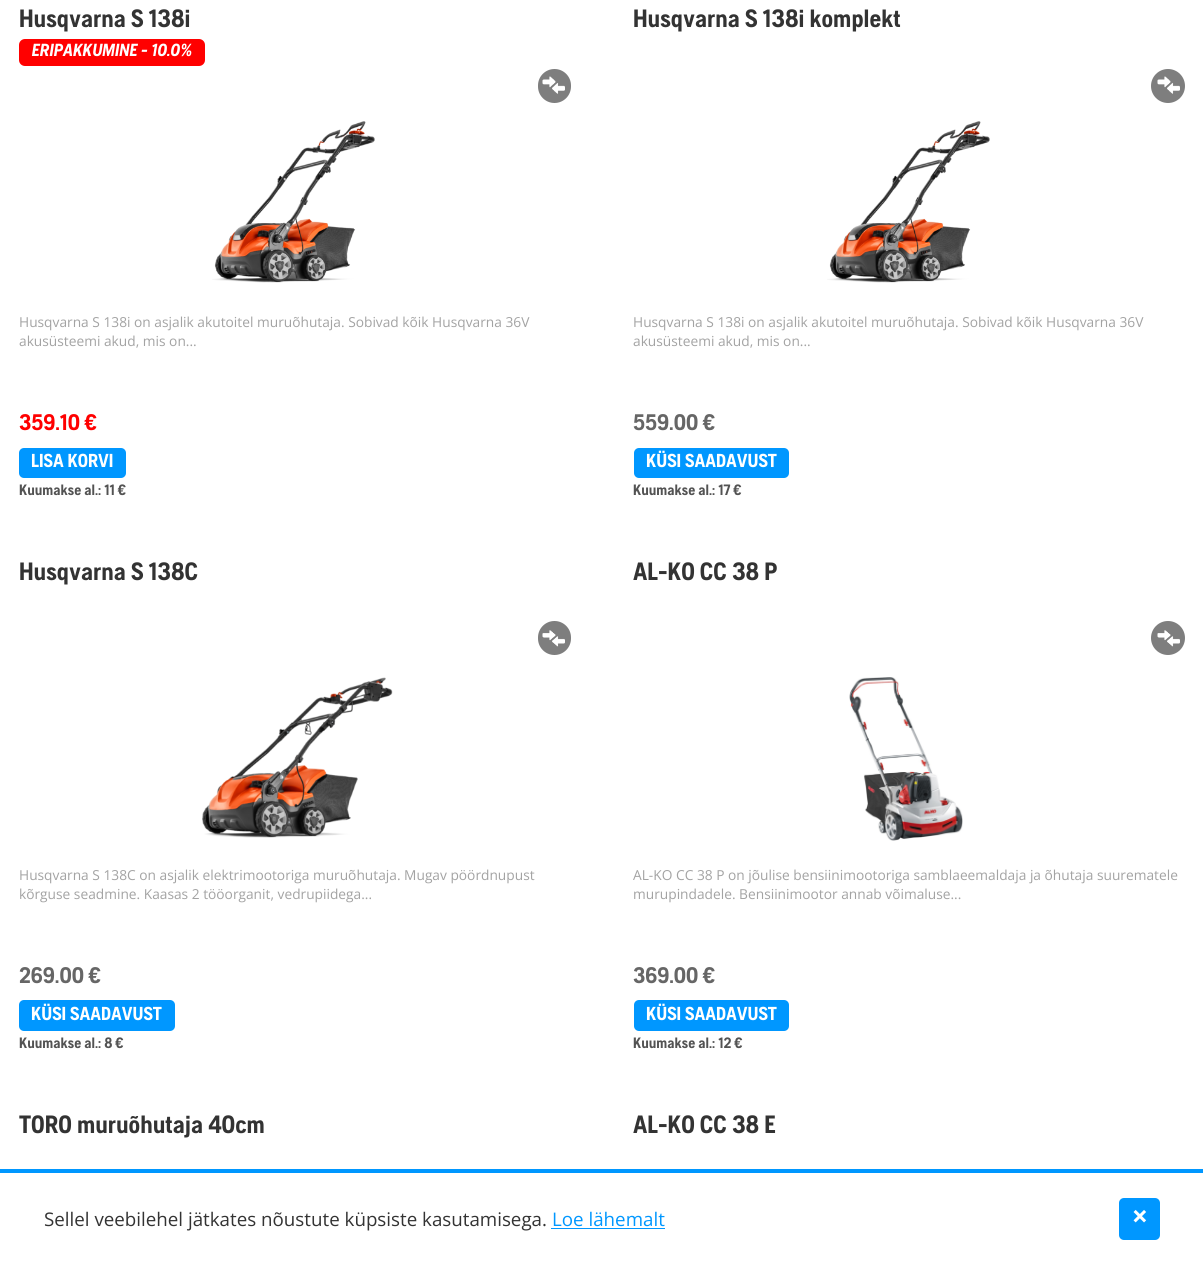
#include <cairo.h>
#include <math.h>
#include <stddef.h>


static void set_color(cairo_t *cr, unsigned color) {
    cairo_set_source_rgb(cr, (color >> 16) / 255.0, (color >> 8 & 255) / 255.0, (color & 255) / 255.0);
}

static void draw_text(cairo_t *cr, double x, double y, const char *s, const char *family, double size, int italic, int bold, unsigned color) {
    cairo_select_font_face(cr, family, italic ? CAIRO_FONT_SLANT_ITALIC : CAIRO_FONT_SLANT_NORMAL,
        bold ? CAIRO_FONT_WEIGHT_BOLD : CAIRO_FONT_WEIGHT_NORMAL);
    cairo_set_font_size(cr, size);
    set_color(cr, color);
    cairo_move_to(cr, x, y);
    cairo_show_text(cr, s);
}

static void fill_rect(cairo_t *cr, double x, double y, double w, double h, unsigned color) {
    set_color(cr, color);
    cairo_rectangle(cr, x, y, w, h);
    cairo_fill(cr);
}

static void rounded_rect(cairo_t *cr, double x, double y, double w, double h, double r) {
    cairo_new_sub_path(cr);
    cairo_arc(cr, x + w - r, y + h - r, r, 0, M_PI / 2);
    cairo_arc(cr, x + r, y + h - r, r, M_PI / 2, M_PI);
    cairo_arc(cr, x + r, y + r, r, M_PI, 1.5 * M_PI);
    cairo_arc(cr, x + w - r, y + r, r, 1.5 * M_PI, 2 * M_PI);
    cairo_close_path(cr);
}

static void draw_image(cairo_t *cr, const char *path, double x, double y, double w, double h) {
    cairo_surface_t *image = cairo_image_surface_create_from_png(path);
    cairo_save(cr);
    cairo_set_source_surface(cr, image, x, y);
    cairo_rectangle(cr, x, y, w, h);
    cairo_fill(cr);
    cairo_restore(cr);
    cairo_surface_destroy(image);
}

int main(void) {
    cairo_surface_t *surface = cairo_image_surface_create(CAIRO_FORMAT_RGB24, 1203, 1265);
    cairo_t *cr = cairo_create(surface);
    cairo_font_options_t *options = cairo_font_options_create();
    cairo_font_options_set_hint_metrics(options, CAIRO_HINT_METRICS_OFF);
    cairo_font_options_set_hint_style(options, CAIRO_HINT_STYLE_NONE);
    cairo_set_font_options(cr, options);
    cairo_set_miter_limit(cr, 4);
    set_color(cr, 0xFFFFFF);
    cairo_paint(cr);
    draw_text(cr, 19, 27, "Husqvarna S 138i", "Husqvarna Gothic", 25, 0, 1, 0x333333);
    set_color(cr, 0xFF0000);
    rounded_rect(cr, 19, 39, 186, 27, 6);
    cairo_fill(cr);
    draw_text(cr, 31, 56, "ERIPAKKUMINE - 10.0%", "Husqvarna Gothic", 17.5, 1, 1, 0xFFFFFF);
    set_color(cr, 0x7E7E7E);
    rounded_rect(cr, 538, 69, 33, 34, 16.5);
    cairo_fill(cr);
    draw_image(cr, "assets/img1.png", 542, 76, 23, 18);
    draw_image(cr, "assets/img2.png", 212, 121, 163, 162);
    draw_text(cr, 19, 327, "Husqvarna S 138i on asjalik akutoitel muruõhutaja. Sobivad kõik Husqvarna 36V", "Open Sans", 13.75, 0, 0, 0xA3A3A3);
    draw_text(cr, 19, 346, "akusüsteemi akud, mis on...", "Open Sans", 13.75, 0, 0, 0xA3A3A3);
    draw_text(cr, 19, 430, "359.10 €", "Husqvarna Gothic", 22.5, 0, 1, 0xFF0000);
    set_color(cr, 0x0097FF);
    rounded_rect(cr, 19, 448, 107, 30, 5);
    cairo_fill(cr);
    draw_text(cr, 31, 467, "LISA KORVI", "Husqvarna Gothic", 18.75, 0, 1, 0xFFFFFF);
    draw_text(cr, 19, 495, "Kuumakse al.: 11 €", "Husqvarna Gothic", 15, 0, 1, 0x535353);
    draw_text(cr, 633, 27, "Husqvarna S 138i komplekt", "Husqvarna Gothic", 25, 0, 1, 0x333333);
    set_color(cr, 0x7E7E7E);
    cairo_new_path(cr);
    cairo_arc(cr, 1168, 86, 17, 0, 2 * M_PI);
    cairo_fill(cr);
    draw_image(cr, "assets/img3.png", 1157, 76, 23, 18);
    draw_image(cr, "assets/img4.png", 827, 121, 163, 162);
    draw_text(cr, 633, 327, "Husqvarna S 138i on asjalik akutoitel muruõhutaja. Sobivad kõik Husqvarna 36V", "Open Sans", 13.75, 0, 0, 0xA3A3A3);
    draw_text(cr, 633, 346, "akusüsteemi akud, mis on...", "Open Sans", 13.75, 0, 0, 0xA3A3A3);
    draw_text(cr, 633, 430, "559.00 €", "Husqvarna Gothic", 22.5, 0, 1, 0x666666);
    set_color(cr, 0x0097FF);
    rounded_rect(cr, 634, 448, 155, 30, 5);
    cairo_fill(cr);
    draw_text(cr, 646, 467, "KÜSI SAADAVUST", "Husqvarna Gothic", 18.75, 0, 1, 0xFFFFFF);
    draw_text(cr, 633, 495, "Kuumakse al.: 17 €", "Husqvarna Gothic", 15, 0, 1, 0x535353);
    draw_text(cr, 19, 580, "Husqvarna S 138C", "Husqvarna Gothic", 25, 0, 1, 0x333333);
    set_color(cr, 0x7E7E7E);
    rounded_rect(cr, 538, 621, 33, 34, 16.5);
    cairo_fill(cr);
    draw_image(cr, "assets/img5.png", 542, 630, 23, 17);
    draw_image(cr, "assets/img6.png", 202, 677, 191, 161);
    draw_text(cr, 19, 880, "Husqvarna S 138C on asjalik elektrimootoriga muruõhutaja. Mugav pöördnupust", "Open Sans", 13.75, 0, 0, 0xA3A3A3);
    draw_text(cr, 19, 899, "kõrguse seadmine. Kaasas 2 tööorganit, vedrupiidega...", "Open Sans", 13.75, 0, 0, 0xA3A3A3);
    draw_text(cr, 19, 983, "269.00 €", "Husqvarna Gothic", 22.5, 0, 1, 0x666666);
    set_color(cr, 0x0097FF);
    rounded_rect(cr, 19, 1000, 156, 31, 5);
    cairo_fill(cr);
    draw_text(cr, 31, 1020, "KÜSI SAADAVUST", "Husqvarna Gothic", 18.75, 0, 1, 0xFFFFFF);
    draw_text(cr, 19, 1048, "Kuumakse al.: 8 €", "Husqvarna Gothic", 15, 0, 1, 0x535353);
    draw_text(cr, 633, 580, "AL-KO CC 38 P", "Husqvarna Gothic", 25, 0, 1, 0x333333);
    set_color(cr, 0x7E7E7E);
    cairo_new_path(cr);
    cairo_arc(cr, 1168, 638, 17, 0, 2 * M_PI);
    cairo_fill(cr);
    draw_image(cr, "assets/img7.png", 1157, 630, 23, 17);
    draw_image(cr, "assets/img8.png", 849, 677, 114, 164);
    draw_text(cr, 633, 880, "AL-KO CC 38 P on jõulise bensiinimootoriga samblaeemaldaja ja õhutaja suurematele", "Open Sans", 13.75, 0, 0, 0xA3A3A3);
    draw_text(cr, 633, 899, "murupindadele. Bensiinimootor annab võimaluse...", "Open Sans", 13.75, 0, 0, 0xA3A3A3);
    draw_text(cr, 633, 983, "369.00 €", "Husqvarna Gothic", 22.5, 0, 1, 0x666666);
    set_color(cr, 0x0097FF);
    rounded_rect(cr, 634, 1000, 155, 31, 5);
    cairo_fill(cr);
    draw_text(cr, 646, 1020, "KÜSI SAADAVUST", "Husqvarna Gothic", 18.75, 0, 1, 0xFFFFFF);
    draw_text(cr, 633, 1048, "Kuumakse al.: 12 €", "Husqvarna Gothic", 15, 0, 1, 0x535353);
    draw_text(cr, 19, 1133, "TORO muruõhutaja 40cm", "Husqvarna Gothic", 25, 0, 1, 0x333333);
    draw_text(cr, 633, 1133, "AL-KO CC 38 E", "Husqvarna Gothic", 25, 0, 1, 0x333333);
    fill_rect(cr, 0, 1169, 1203, 4, 0x0097FF);
    draw_text(cr, 44, 1226, "Sellel veebilehel jätkates nõustute küpsiste kasutamisega.", "Open Sans", 18.75, 0, 0, 0x333333);
    draw_text(cr, 552, 1226, "Loe lähemalt", "Open Sans", 18.75, 0, 0, 0x0097FF);
    fill_rect(cr, 551, 1228, 114, 1, 0x0097FF);
    rounded_rect(cr, 1119, 1198, 41, 42, 5);
    cairo_fill(cr);
    draw_text(cr, 1132, 1226, "×", "Husqvarna Gothic", 30, 0, 1, 0xFFFFFF);
    cairo_surface_write_to_png(surface, "output.png");
    cairo_font_options_destroy(options);
    cairo_destroy(cr);
    cairo_surface_destroy(surface);
    return 0;
}
